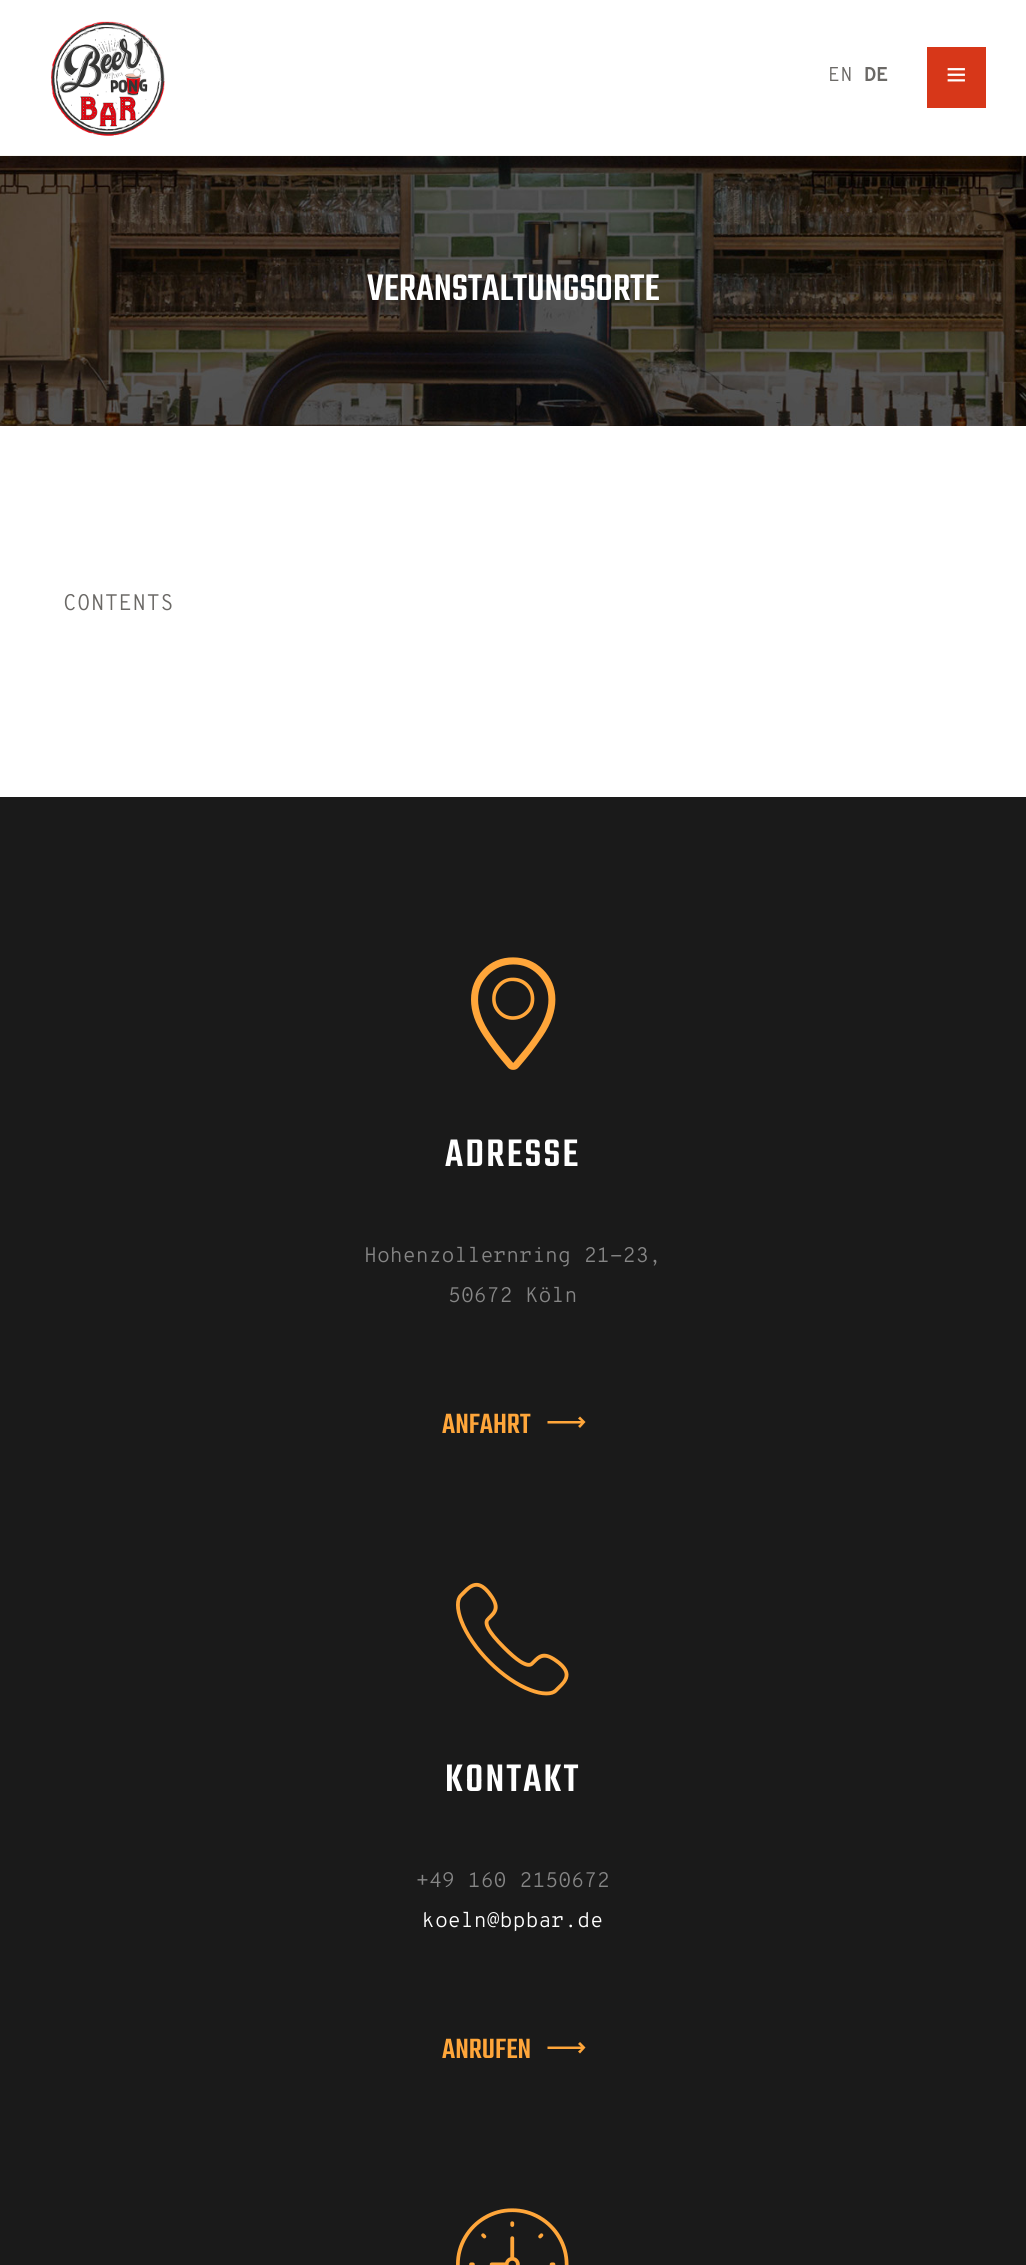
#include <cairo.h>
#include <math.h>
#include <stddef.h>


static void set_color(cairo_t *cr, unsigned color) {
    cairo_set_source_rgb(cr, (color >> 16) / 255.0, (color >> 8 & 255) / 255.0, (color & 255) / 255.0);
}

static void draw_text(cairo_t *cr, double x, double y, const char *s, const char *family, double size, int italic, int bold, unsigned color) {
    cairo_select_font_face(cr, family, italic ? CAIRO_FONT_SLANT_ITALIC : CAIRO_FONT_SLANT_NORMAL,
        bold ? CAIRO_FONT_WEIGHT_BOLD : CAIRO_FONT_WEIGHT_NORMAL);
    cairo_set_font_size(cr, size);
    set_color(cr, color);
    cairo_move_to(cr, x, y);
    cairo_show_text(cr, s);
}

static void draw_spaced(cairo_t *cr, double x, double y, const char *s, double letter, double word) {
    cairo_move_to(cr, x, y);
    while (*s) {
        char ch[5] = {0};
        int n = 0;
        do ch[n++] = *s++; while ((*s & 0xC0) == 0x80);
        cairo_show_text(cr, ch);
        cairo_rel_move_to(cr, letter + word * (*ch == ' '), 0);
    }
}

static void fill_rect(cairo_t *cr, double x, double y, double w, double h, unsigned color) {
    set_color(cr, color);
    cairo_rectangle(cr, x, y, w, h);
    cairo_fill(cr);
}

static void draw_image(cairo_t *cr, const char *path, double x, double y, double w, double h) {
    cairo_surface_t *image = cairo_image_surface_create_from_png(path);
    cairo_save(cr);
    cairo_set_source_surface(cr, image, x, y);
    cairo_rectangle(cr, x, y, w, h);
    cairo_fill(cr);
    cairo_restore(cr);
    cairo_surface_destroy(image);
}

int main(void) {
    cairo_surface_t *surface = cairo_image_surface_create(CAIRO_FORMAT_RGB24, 1026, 2265);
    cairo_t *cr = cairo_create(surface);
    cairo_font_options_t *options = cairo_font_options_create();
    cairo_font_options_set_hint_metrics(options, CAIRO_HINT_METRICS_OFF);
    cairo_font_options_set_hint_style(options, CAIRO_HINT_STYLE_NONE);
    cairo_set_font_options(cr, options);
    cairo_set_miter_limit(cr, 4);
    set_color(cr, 0xFFFFFF);
    cairo_paint(cr);
    fill_rect(cr, 0, 155, 1026, 1, 0xF6F5F1);
    draw_image(cr, "assets/img1.png", 51, 21, 114, 115);
    draw_text(cr, 828, 81, "EN", "Overpass Mono Light", 20, 0, 0, 0x6B6966);
    draw_text(cr, 864, 81, "DE", "Overpass Mono", 20, 0, 1, 0x6B6966);
    fill_rect(cr, 927, 47, 59, 61, 0xD73719);
    draw_image(cr, "assets/img2.png", 947, 68, 18, 14);
    draw_image(cr, "assets/img3.png", 0, 156, 1026, 270);
    draw_text(cr, 367, 300, "VERANSTALTUNGSORTE", "Teko Medium", 40.5, 0, 0, 0xFFFFFF);
    draw_text(cr, 63, 610, "CONTENTS", "Overpass Mono Light", 22.5, 0, 0, 0x6B6966);
    fill_rect(cr, 0, 797, 1026, 1468, 0x1A1A1A);
    draw_image(cr, "assets/img4.png", 471, 957, 85, 113);
    cairo_select_font_face(cr, "Teko Medium", CAIRO_FONT_SLANT_NORMAL, CAIRO_FONT_WEIGHT_NORMAL);
    cairo_set_font_size(cr, 42);
    set_color(cr, 0xFFFFFF);
    draw_spaced(cr, 445, 1166, "ADRESSE", 2.25, 0);
    draw_text(cr, 364, 1262, "Hohenzollernring 21-23,", "Overpass Mono Light", 21, 0, 0, 0x868686);
    draw_text(cr, 448, 1302, "50672 Köln", "Overpass Mono Light", 21, 0, 0, 0x868686);
    draw_text(cr, 442, 1433, "ANFAHRT", "Teko Medium", 30.5, 0, 0, 0xFFA63A);
    cairo_new_path(cr);
    cairo_move_to(cr, 580, 1416.5);
    cairo_line_to(cr, 578, 1418.5);
    cairo_line_to(cr, 581, 1421);
    cairo_line_to(cr, 547.5, 1421);
    cairo_line_to(cr, 547.5, 1423.5);
    cairo_line_to(cr, 581, 1423.5);
    cairo_line_to(cr, 578, 1426);
    cairo_line_to(cr, 580, 1428);
    cairo_line_to(cr, 585.5, 1422);
    cairo_close_path(cr);
    cairo_fill(cr);
    draw_image(cr, "assets/img5.png", 456, 1582, 113, 114);
    cairo_set_font_size(cr, 42);
    set_color(cr, 0xFFFFFF);
    draw_spaced(cr, 445, 1791, "KONTAKT", 2.25, 0);
    draw_text(cr, 416, 1887, "+49 160 2150672", "Overpass Mono Light", 21, 0, 0, 0x868686);
    draw_text(cr, 422, 1927, "koeln@bpbar.de", "Overpass Mono Light", 21, 0, 0, 0xFFFFFF);
    draw_text(cr, 442, 2058, "ANRUFEN", "Teko Medium", 30.5, 0, 0, 0xFFA63A);
    cairo_new_path(cr);
    cairo_move_to(cr, 580, 2042);
    cairo_line_to(cr, 578, 2044);
    cairo_line_to(cr, 581, 2046.5);
    cairo_line_to(cr, 547.5, 2046.5);
    cairo_line_to(cr, 547.5, 2049);
    cairo_line_to(cr, 581, 2049);
    cairo_line_to(cr, 578, 2051.5);
    cairo_line_to(cr, 580, 2053.5);
    cairo_line_to(cr, 585.5, 2047.5);
    cairo_close_path(cr);
    cairo_fill(cr);
    draw_image(cr, "assets/img6.png", 456, 2208, 113, 57);
    cairo_surface_write_to_png(surface, "output.png");
    cairo_font_options_destroy(options);
    cairo_destroy(cr);
    cairo_surface_destroy(surface);
    return 0;
}
